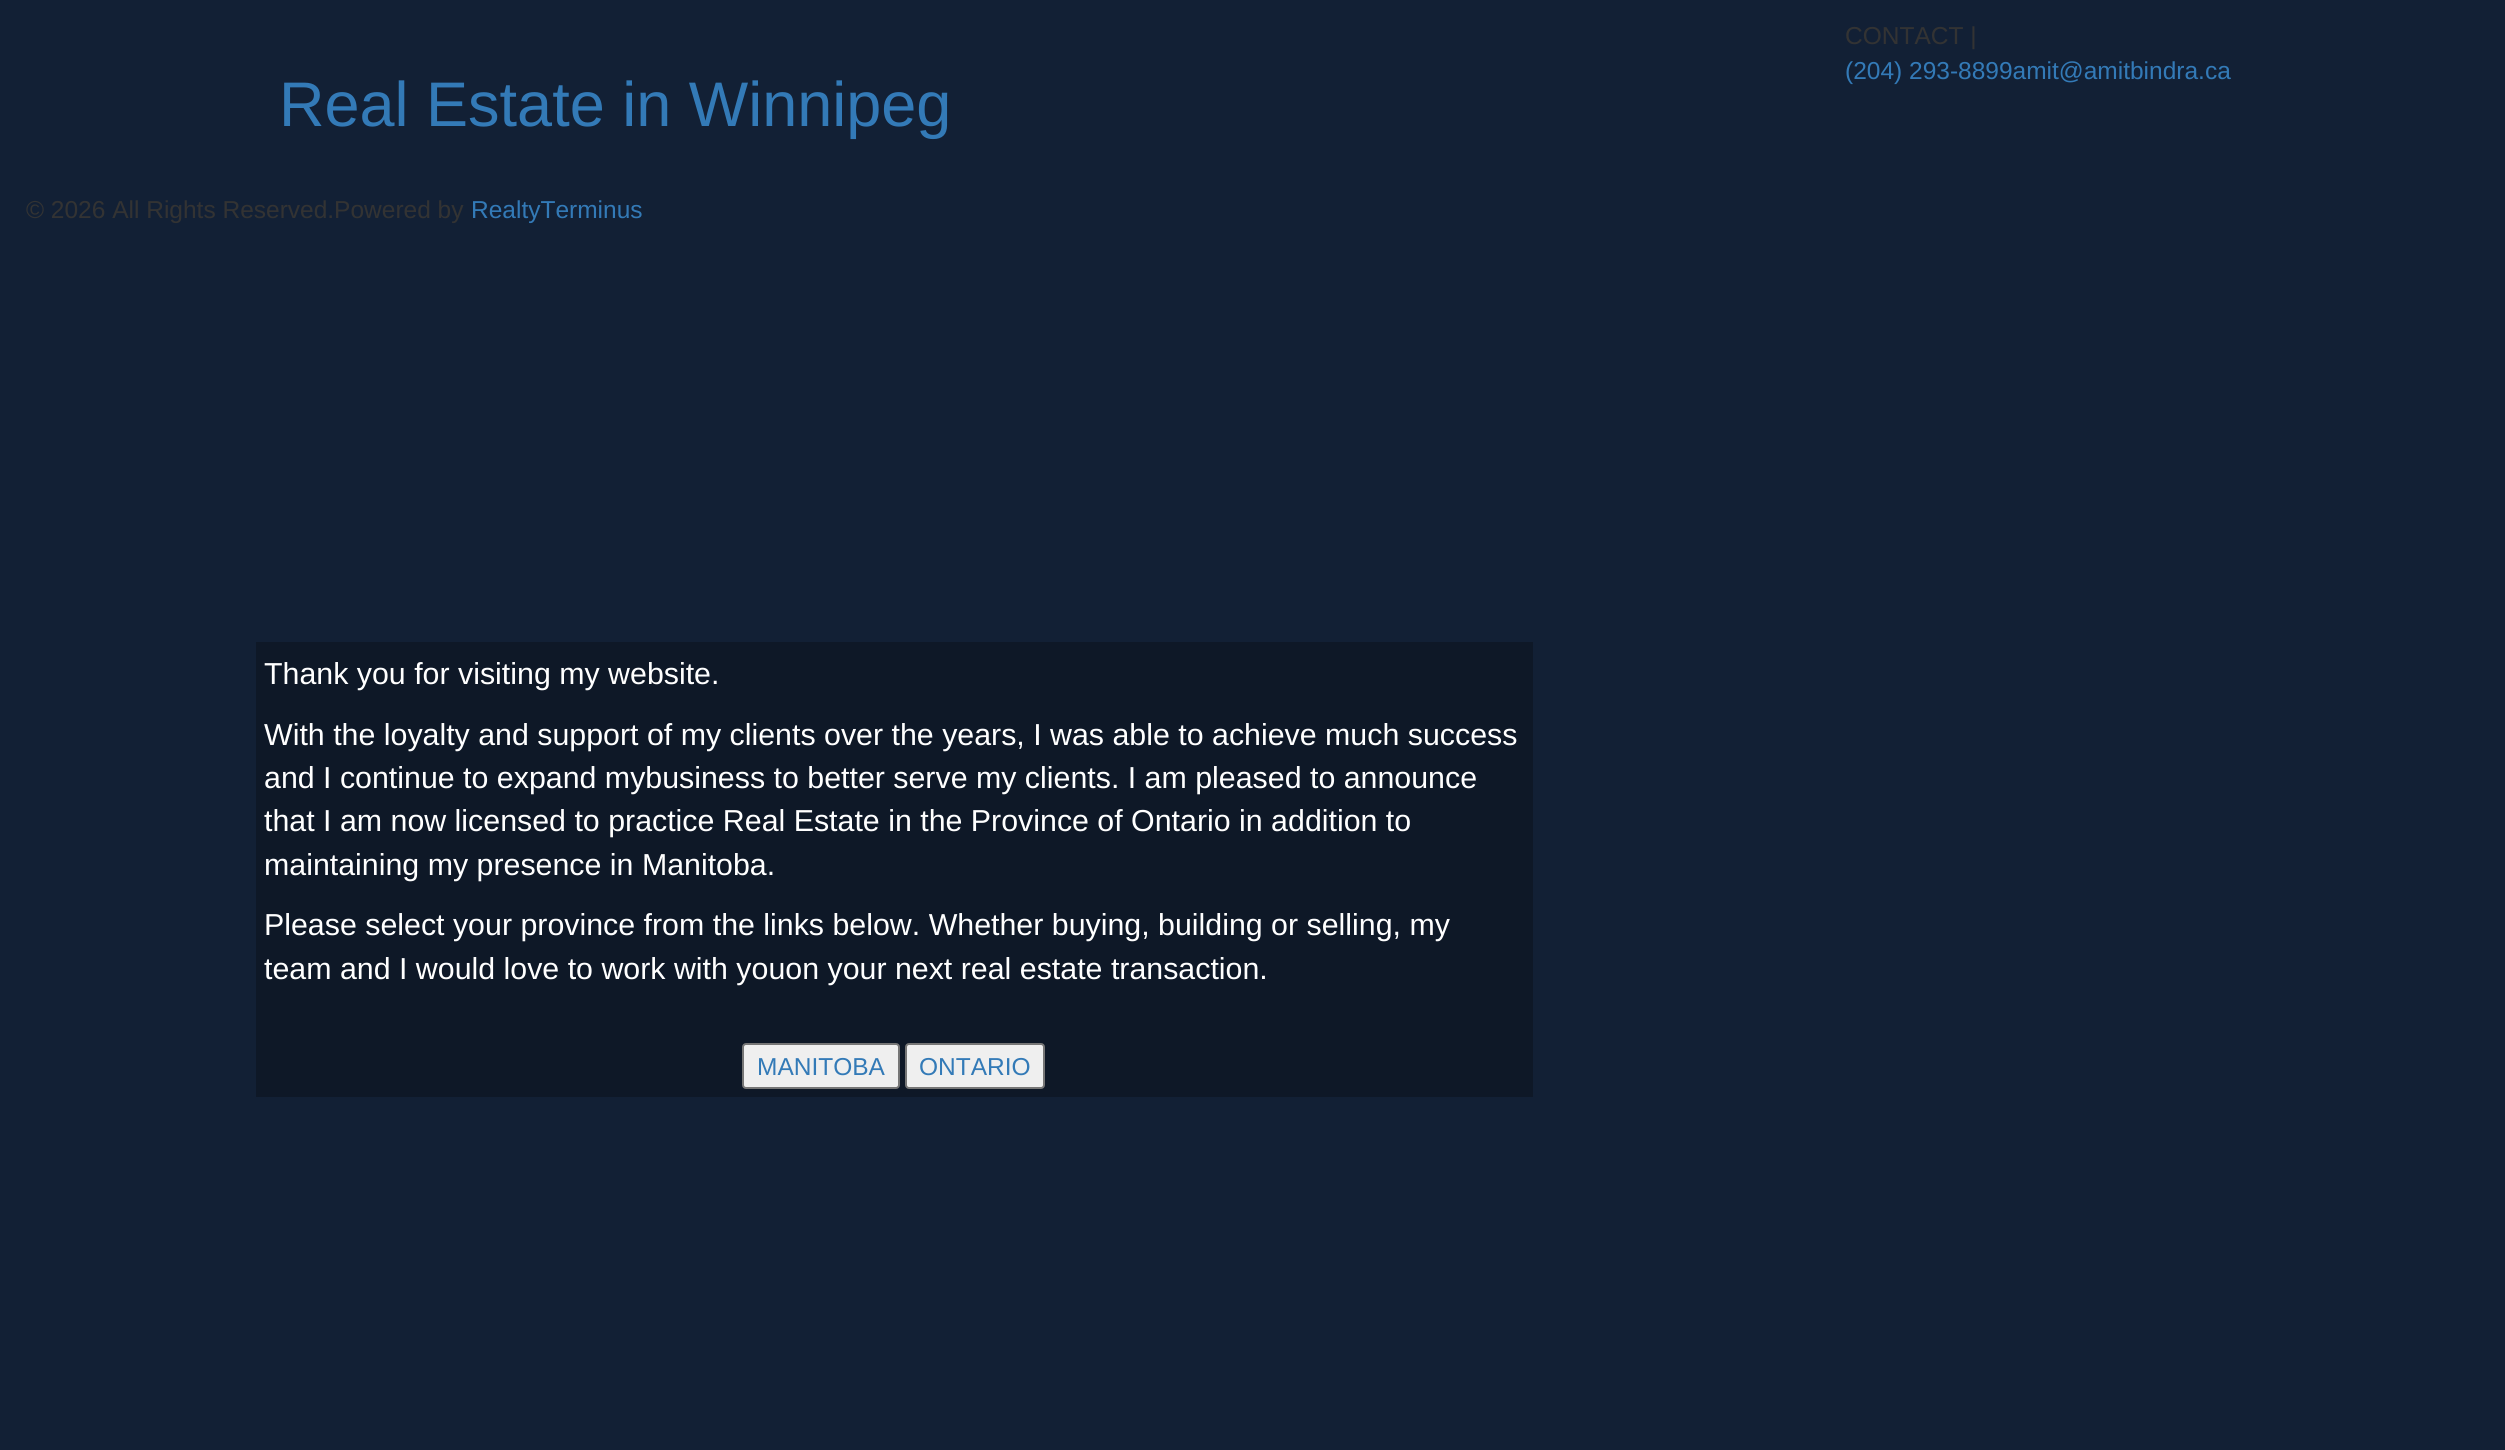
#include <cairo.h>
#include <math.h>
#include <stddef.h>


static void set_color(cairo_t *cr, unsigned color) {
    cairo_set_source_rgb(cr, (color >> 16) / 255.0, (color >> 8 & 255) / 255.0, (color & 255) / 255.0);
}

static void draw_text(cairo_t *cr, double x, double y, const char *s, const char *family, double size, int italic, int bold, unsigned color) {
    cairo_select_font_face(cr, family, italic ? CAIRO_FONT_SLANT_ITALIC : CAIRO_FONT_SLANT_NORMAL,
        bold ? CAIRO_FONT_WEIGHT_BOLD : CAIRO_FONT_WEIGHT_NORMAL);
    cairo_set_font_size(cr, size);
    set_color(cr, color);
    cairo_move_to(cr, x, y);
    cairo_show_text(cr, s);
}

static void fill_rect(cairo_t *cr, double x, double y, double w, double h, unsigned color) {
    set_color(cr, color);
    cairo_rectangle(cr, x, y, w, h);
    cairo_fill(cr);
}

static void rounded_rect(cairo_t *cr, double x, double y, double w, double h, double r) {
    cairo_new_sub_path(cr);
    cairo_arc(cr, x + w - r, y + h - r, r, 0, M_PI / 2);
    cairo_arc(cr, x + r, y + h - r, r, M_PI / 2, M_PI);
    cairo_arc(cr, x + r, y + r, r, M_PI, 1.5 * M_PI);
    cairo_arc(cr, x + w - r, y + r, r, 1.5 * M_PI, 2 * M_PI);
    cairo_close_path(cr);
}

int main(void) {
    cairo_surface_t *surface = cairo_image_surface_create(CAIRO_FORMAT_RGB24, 2505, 1450);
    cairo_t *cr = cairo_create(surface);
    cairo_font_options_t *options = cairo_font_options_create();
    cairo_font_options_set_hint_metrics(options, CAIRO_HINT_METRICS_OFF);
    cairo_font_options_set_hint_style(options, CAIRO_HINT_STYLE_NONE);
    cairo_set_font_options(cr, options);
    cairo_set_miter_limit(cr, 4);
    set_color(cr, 0x122035);
    cairo_paint(cr);
    draw_text(cr, 1845, 44, "CONTACT |", "Liberation Sans", 24.5, 0, 0, 0x333333);
    draw_text(cr, 1845, 79, "(204) 293-8899amit@amitbindra.ca", "Liberation Sans", 24.5, 0, 0, 0x337AB7);
    draw_text(cr, 279, 126, "Real Estate in Winnipeg", "Liberation Sans", 63, 0, 0, 0x337AB7);
    draw_text(cr, 26, 218, "© 2026 All Rights Reserved.Powered by", "Liberation Sans", 24.5, 0, 0, 0x333333);
    draw_text(cr, 471, 218, "RealtyTerminus", "Liberation Sans", 24.5, 0, 0, 0x337AB7);
    fill_rect(cr, 256, 642, 1277, 455, 0x0E1827);
    draw_text(cr, 264, 684, "Thank you for visiting my website.", "Liberation Sans", 30.35, 0, 0, 0xFFFFFF);
    draw_text(cr, 264, 745, "With the loyalty and support of my clients over the years, I was able to achieve much success", "Liberation Sans", 30.35, 0, 0, 0xFFFFFF);
    draw_text(cr, 264, 788, "and I continue to expand mybusiness to better serve my clients. I am pleased to announce", "Liberation Sans", 30.35, 0, 0, 0xFFFFFF);
    draw_text(cr, 264, 831, "that I am now licensed to practice Real Estate in the Province of Ontario in addition to", "Liberation Sans", 30.35, 0, 0, 0xFFFFFF);
    draw_text(cr, 264, 875, "maintaining my presence in Manitoba.", "Liberation Sans", 30.35, 0, 0, 0xFFFFFF);
    draw_text(cr, 264, 935, "Please select your province from the links below. Whether buying, building or selling, my", "Liberation Sans", 30.35, 0, 0, 0xFFFFFF);
    draw_text(cr, 264, 979, "team and I would love to work with youon your next real estate transaction.", "Liberation Sans", 30.35, 0, 0, 0xFFFFFF);
    set_color(cr, 0xEFEFEF);
    rounded_rect(cr, 743, 1044, 156, 44, 3);
    cairo_fill_preserve(cr);
    set_color(cr, 0x767676);
    cairo_stroke(cr);
    draw_text(cr, 757, 1075, "MANITOBA", "Liberation Sans", 24.5, 0, 0, 0x337AB7);
    set_color(cr, 0xEFEFEF);
    rounded_rect(cr, 906, 1044, 138, 44, 3);
    cairo_fill_preserve(cr);
    set_color(cr, 0x767676);
    cairo_stroke(cr);
    draw_text(cr, 919, 1075, "ONTARIO", "Liberation Sans", 24.5, 0, 0, 0x337AB7);
    cairo_surface_write_to_png(surface, "output.png");
    cairo_font_options_destroy(options);
    cairo_destroy(cr);
    cairo_surface_destroy(surface);
    return 0;
}
